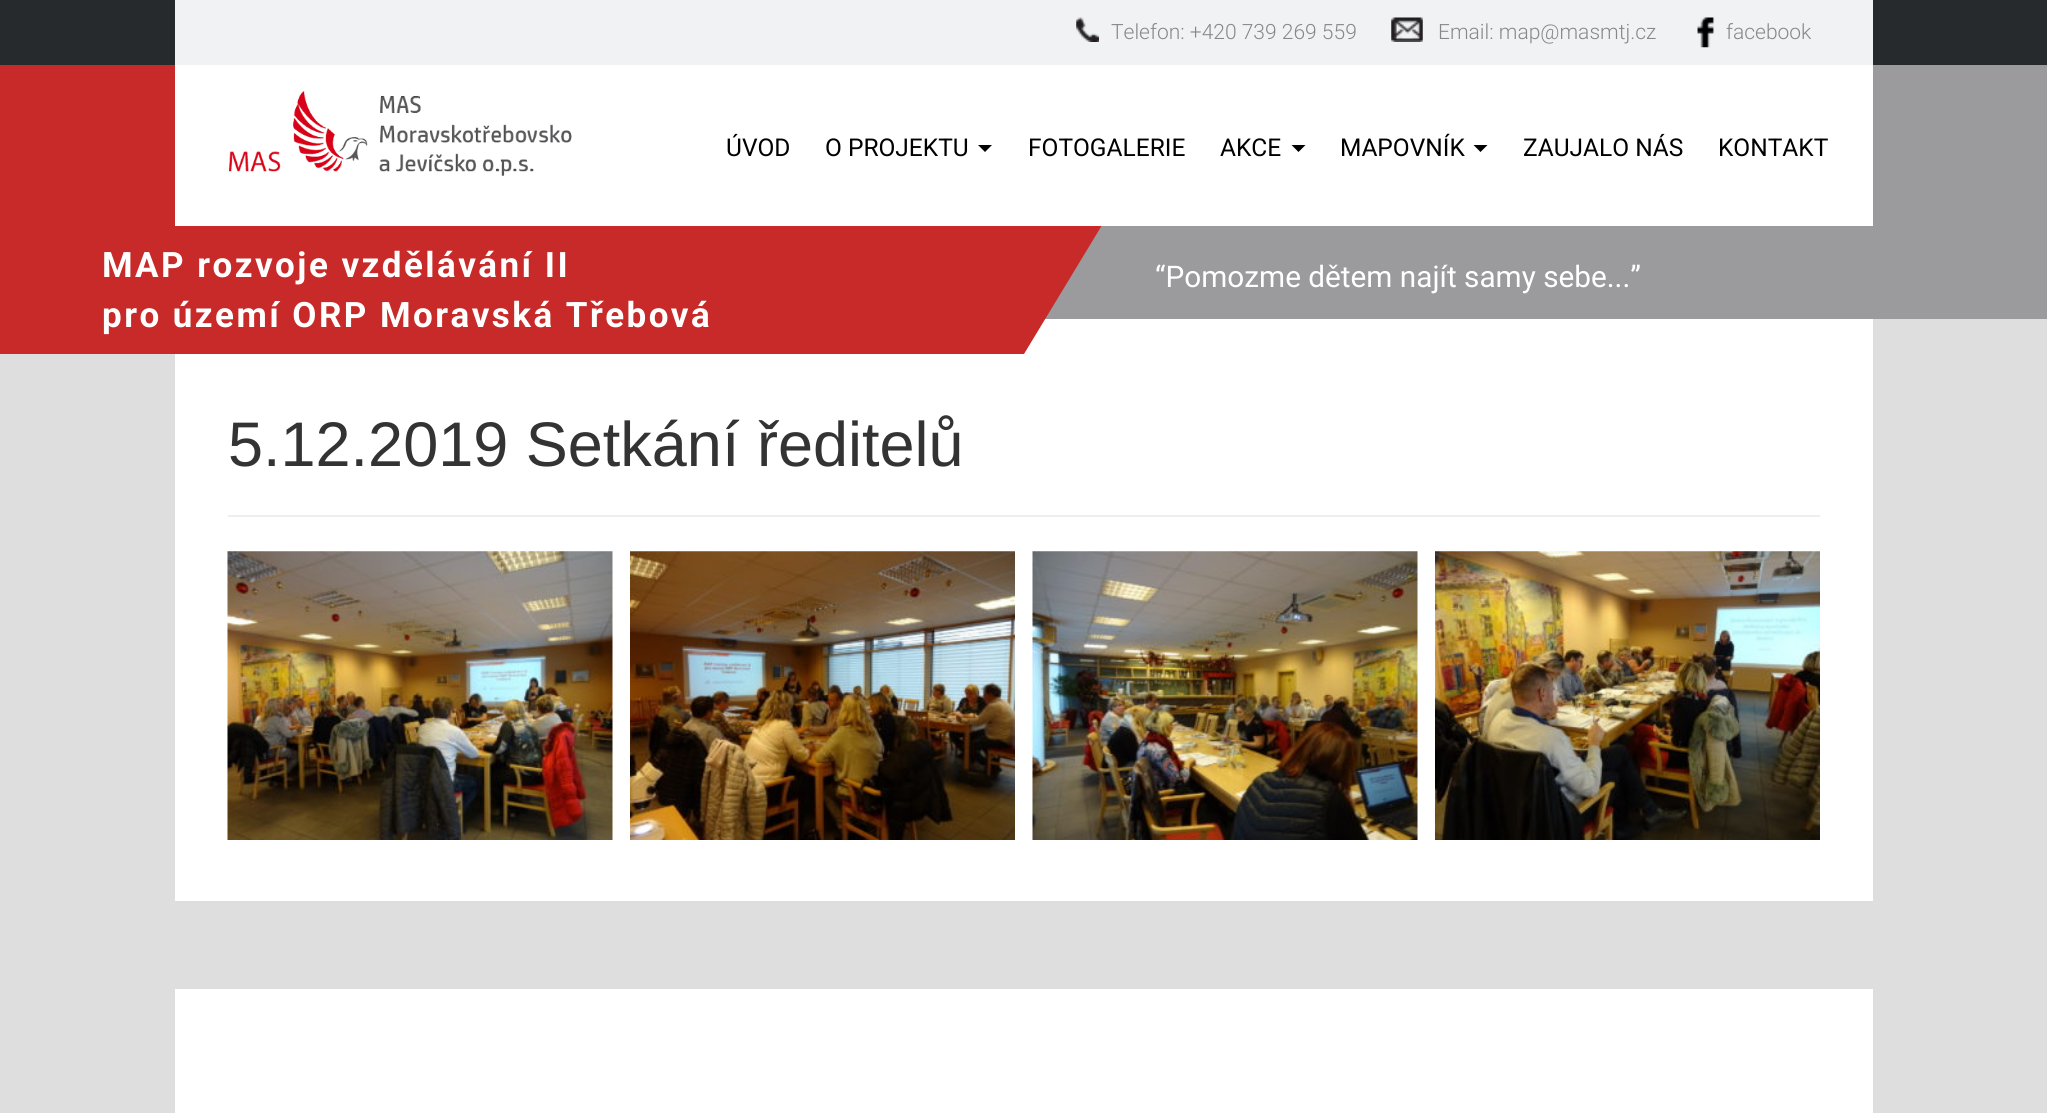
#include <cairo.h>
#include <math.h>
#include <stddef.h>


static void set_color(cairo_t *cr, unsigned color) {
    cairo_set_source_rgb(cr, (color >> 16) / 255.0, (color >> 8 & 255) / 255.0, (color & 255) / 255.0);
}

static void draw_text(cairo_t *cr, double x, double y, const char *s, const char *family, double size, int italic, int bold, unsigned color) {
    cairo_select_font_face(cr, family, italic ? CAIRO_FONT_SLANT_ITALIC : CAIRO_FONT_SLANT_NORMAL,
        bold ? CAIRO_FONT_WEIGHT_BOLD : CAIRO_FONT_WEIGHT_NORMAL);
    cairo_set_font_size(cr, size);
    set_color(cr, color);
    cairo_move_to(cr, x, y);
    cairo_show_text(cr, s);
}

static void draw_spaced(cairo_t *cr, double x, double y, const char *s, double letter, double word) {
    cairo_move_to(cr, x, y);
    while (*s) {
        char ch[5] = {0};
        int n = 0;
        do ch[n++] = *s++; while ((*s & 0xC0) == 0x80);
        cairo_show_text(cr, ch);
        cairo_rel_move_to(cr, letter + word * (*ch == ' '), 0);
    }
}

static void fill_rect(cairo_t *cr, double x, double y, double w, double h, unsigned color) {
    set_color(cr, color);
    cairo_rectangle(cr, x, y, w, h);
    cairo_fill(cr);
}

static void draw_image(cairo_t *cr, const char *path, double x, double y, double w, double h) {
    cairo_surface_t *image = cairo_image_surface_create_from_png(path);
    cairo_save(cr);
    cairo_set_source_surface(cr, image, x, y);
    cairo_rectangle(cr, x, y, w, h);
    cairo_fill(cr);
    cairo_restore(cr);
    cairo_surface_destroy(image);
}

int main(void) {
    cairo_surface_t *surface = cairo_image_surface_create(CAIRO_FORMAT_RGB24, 2047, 1113);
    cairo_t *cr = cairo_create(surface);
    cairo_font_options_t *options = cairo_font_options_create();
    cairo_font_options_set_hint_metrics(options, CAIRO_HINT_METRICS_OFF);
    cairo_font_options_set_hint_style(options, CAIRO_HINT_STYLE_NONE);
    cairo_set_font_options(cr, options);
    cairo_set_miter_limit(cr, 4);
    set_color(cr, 0xDEDEDE);
    cairo_paint(cr);
    fill_rect(cr, 0, 0, 2047, 65, 0x262A2D);
    fill_rect(cr, 175, 0, 1698, 65, 0xF0F2F4);
    draw_image(cr, "assets/img1.png", 1076, 17, 23, 25);
    draw_text(cr, 1111, 39, "Telefon: +420 739 269 559", "Roboto Light", 21, 0, 0, 0x898888);
    draw_image(cr, "assets/img2.png", 1391, 17, 32, 25);
    draw_text(cr, 1438, 39, "Email: map@masmtj.cz", "Roboto Light", 21, 0, 0, 0x898888);
    draw_image(cr, "assets/img3.png", 1697, 17, 18, 31);
    draw_text(cr, 1726, 39, "facebook", "Roboto Light", 21, 0, 0, 0x898888);
    fill_rect(cr, 175, 319, 1698, 582, 0xFFFFFF);
    fill_rect(cr, 0, 65, 1024, 289, 0xC72A28);
    fill_rect(cr, 1045, 65, 1002, 254, 0x9B9B9D);
    draw_text(cr, 1155, 287, "“Pomozme dětem najít samy sebe...”", "Roboto", 29.75, 0, 0, 0xFFFFFF);
    set_color(cr, 0xC72A28);
    cairo_new_path(cr);
    cairo_move_to(cr, 1024, 65);
    cairo_line_to(cr, 1199, 65);
    cairo_line_to(cr, 1024, 354);
    cairo_close_path(cr);
    cairo_fill(cr);
    fill_rect(cr, 175, 65, 1698, 161, 0xFFFFFF);
    draw_image(cr, "assets/img4.png", 229, 91, 343, 85);
    draw_text(cr, 726, 156, "ÚVOD", "Roboto", 24.5, 0, 0, 0x000000);
    draw_text(cr, 825, 156, "O PROJEKTU", "Roboto", 24.5, 0, 0, 0x000000);
    cairo_new_path(cr);
    cairo_move_to(cr, 978, 145);
    cairo_line_to(cr, 992, 145);
    cairo_line_to(cr, 985, 152);
    cairo_close_path(cr);
    cairo_fill(cr);
    draw_text(cr, 1028, 156, "FOTOGALERIE", "Roboto", 24.5, 0, 0, 0x000000);
    draw_text(cr, 1220, 156, "AKCE", "Roboto", 24.5, 0, 0, 0x000000);
    cairo_new_path(cr);
    cairo_move_to(cr, 1291.5, 145);
    cairo_line_to(cr, 1305.5, 145);
    cairo_line_to(cr, 1298.5, 152);
    cairo_close_path(cr);
    cairo_fill(cr);
    draw_text(cr, 1340, 156, "MAPOVNÍK", "Roboto", 24.5, 0, 0, 0x000000);
    cairo_new_path(cr);
    cairo_move_to(cr, 1473.5, 145);
    cairo_line_to(cr, 1487.5, 145);
    cairo_line_to(cr, 1480.5, 152);
    cairo_close_path(cr);
    cairo_fill(cr);
    draw_text(cr, 1523, 156, "ZAUJALO NÁS", "Roboto", 24.5, 0, 0, 0x000000);
    draw_text(cr, 1718, 156, "KONTAKT", "Roboto", 24.5, 0, 0, 0x000000);
    cairo_select_font_face(cr, "Roboto", CAIRO_FONT_SLANT_NORMAL, CAIRO_FONT_WEIGHT_BOLD);
    cairo_set_font_size(cr, 35);
    set_color(cr, 0xFFFFFF);
    draw_spaced(cr, 102, 277, "MAP rozvoje vzdělávání II", 2.45, 0);
    draw_spaced(cr, 102, 327, "pro území ORP Moravská Třebová", 2.45, 0);
    draw_text(cr, 228, 466, "5.12.2019 Setkání ředitelů", "Liberation Sans", 63, 0, 0, 0x333333);
    fill_rect(cr, 228, 515, 1592, 2, 0xEEEEEE);
    draw_image(cr, "assets/img5.png", 227, 551, 386, 289);
    draw_image(cr, "assets/img6.png", 630, 551, 385, 289);
    draw_image(cr, "assets/img7.png", 1032, 551, 386, 289);
    draw_image(cr, "assets/img8.png", 1435, 551, 385, 289);
    fill_rect(cr, 175, 989, 1698, 124, 0xFFFFFF);
    cairo_surface_write_to_png(surface, "output.png");
    cairo_font_options_destroy(options);
    cairo_destroy(cr);
    cairo_surface_destroy(surface);
    return 0;
}
